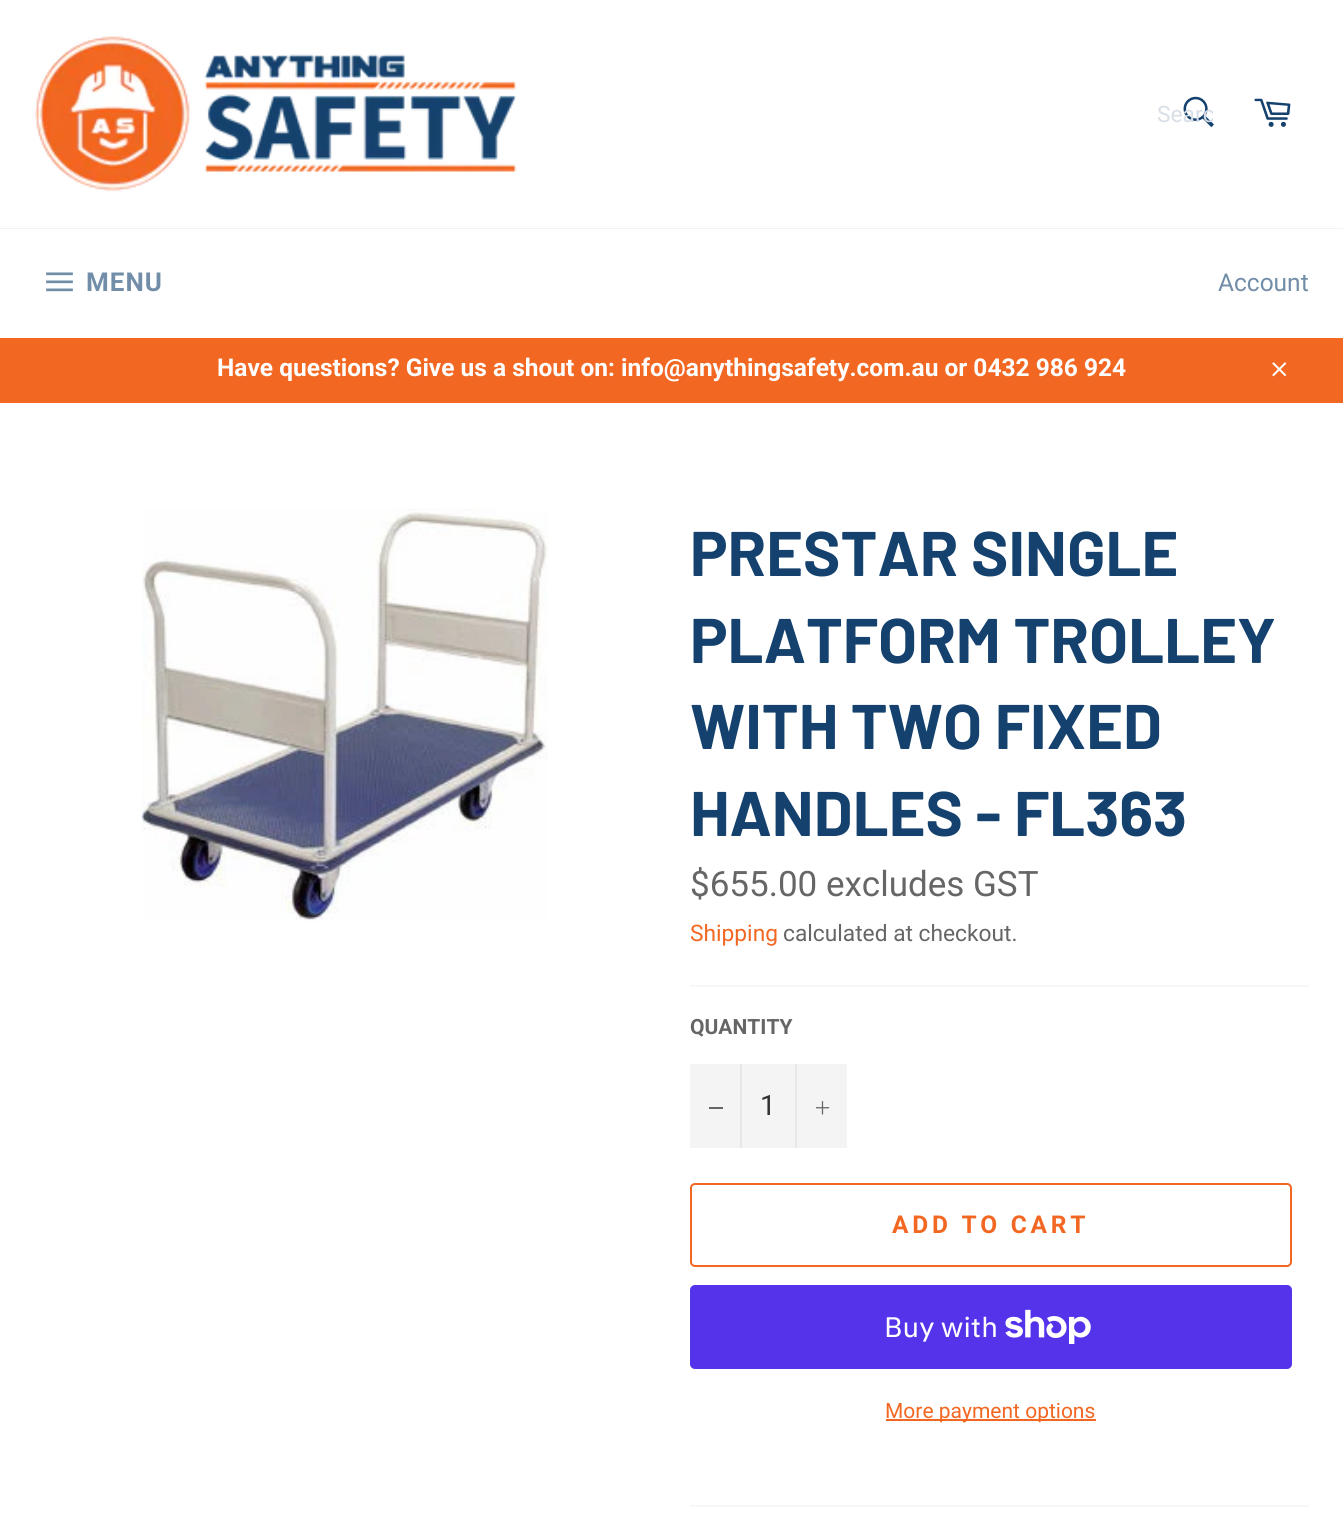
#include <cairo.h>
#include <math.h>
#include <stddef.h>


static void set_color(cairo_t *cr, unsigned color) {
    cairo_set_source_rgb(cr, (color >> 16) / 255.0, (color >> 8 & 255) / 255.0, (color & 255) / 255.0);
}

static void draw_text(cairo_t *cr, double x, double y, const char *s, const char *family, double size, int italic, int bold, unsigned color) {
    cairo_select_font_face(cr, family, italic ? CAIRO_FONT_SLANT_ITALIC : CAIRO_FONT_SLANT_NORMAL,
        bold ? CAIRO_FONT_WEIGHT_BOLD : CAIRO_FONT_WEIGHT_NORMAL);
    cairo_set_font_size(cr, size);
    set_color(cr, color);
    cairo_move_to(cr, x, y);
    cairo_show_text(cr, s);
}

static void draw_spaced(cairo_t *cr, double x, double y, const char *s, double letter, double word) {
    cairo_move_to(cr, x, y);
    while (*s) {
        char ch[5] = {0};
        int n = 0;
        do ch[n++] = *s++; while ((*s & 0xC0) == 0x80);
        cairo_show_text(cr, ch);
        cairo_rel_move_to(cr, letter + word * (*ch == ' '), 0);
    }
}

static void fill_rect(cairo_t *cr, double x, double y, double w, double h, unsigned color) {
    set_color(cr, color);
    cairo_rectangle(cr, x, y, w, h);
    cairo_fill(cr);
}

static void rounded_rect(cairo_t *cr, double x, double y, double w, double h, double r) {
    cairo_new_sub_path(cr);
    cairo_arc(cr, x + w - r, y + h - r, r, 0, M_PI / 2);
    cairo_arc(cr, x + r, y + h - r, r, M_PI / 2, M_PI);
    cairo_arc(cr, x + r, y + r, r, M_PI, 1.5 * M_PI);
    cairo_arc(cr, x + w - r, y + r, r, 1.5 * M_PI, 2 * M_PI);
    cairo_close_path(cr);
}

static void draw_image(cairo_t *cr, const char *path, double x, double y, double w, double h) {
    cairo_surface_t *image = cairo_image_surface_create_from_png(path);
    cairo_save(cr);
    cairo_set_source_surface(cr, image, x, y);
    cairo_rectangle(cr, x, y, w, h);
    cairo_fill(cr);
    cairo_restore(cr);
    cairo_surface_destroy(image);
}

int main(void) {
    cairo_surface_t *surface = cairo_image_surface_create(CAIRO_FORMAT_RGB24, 1343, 1518);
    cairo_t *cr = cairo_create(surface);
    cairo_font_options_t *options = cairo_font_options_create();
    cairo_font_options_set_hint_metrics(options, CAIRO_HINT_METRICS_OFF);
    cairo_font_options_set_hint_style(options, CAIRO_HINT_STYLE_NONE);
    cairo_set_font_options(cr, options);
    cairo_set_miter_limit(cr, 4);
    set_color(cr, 0xFFFFFF);
    cairo_paint(cr);
    draw_image(cr, "assets/img1.png", 35, 36, 482, 156);
    draw_image(cr, "assets/img2.png", 1183, 96, 31, 32);
    cairo_save(cr);
    cairo_rectangle(cr, 1157, 102, 56, 26);
    cairo_clip(cr);
    draw_text(cr, 1157, 122, "Searc", "Roboto", 22.75, 0, 0, 0xD8DFE7);
    cairo_restore(cr);
    draw_image(cr, "assets/img3.png", 1254, 98, 37, 29);
    fill_rect(cr, 0, 228, 1343, 1, 0xF2F2F2);
    draw_image(cr, "assets/img4.png", 46, 272, 27, 20);
    cairo_select_font_face(cr, "Roboto", CAIRO_FONT_SLANT_NORMAL, CAIRO_FONT_WEIGHT_BOLD);
    cairo_set_font_size(cr, 26);
    set_color(cr, 0x728DA7);
    draw_spaced(cr, 86, 291, "MENU", 1, 0);
    draw_text(cr, 1218, 291, "Account", "Roboto", 24.5, 0, 0, 0x728DA7);
    fill_rect(cr, 0, 338, 1343, 65, 0xF26722);
    draw_text(cr, 217, 376, "Have questions? Give us a shout on: info@anythingsafety.com.au or 0432 986 924", "Roboto", 24.5, 0, 1, 0xFFFFFF);
    draw_image(cr, "assets/img5.png", 1272, 362, 15, 15);
    draw_image(cr, "assets/img6.png", 141, 508, 407, 413);
    draw_text(cr, 690, 576, "PRESTAR SINGLE", "Barlow", 63, 0, 1, 0x14416D);
    draw_text(cr, 690, 663, "PLATFORM TROLLEY", "Barlow", 63, 0, 1, 0x14416D);
    draw_text(cr, 690, 749, "WITH TWO FIXED", "Barlow", 63, 0, 1, 0x14416D);
    draw_text(cr, 690, 836, "HANDLES - FL363", "Barlow", 63, 0, 1, 0x14416D);
    draw_text(cr, 690, 896, "$655.00 excludes GST", "Roboto", 35, 0, 0, 0x666666);
    draw_text(cr, 690, 941, "Shipping", "Roboto", 22.75, 0, 0, 0xF26722);
    draw_text(cr, 783, 941, "calculated at checkout.", "Roboto", 22.75, 0, 0, 0x666666);
    fill_rect(cr, 690, 985, 619, 2, 0xF7F7F7);
    draw_text(cr, 690, 1034, "QUANTITY", "Roboto", 21, 0, 1, 0x666666);
    fill_rect(cr, 690, 1064, 157, 84, 0xF4F4F4);
    fill_rect(cr, 740, 1064, 2, 84, 0xE7E7E7);
    fill_rect(cr, 709, 1107, 14, 2, 0x666666);
    draw_text(cr, 760, 1115, "1", "Roboto", 28, 0, 0, 0x333333);
    fill_rect(cr, 795, 1064, 2, 84, 0xE7E7E7);
    draw_image(cr, "assets/img7.png", 816, 1101, 14, 14);
    rounded_rect(cr, 691, 1184, 600, 82, 4);
    set_color(cr, 0xF26722);
    cairo_stroke(cr);
    cairo_select_font_face(cr, "Roboto", CAIRO_FONT_SLANT_NORMAL, CAIRO_FONT_WEIGHT_BOLD);
    cairo_set_font_size(cr, 24.5);
    draw_spaced(cr, 892, 1233, "ADD TO CART", 3.75, 0);
    set_color(cr, 0x5433EB);
    rounded_rect(cr, 690, 1285, 602, 84, 5);
    cairo_fill(cr);
    draw_text(cr, 884, 1337, "Buy with", "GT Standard", 28, 0, 0, 0xFFFFFF);
    draw_image(cr, "assets/img8.png", 1005, 1309, 86, 35);
    fill_rect(cr, 886, 1419, 210, 2, 0xF26722);
    draw_text(cr, 885, 1418, "More payment options", "Roboto", 21, 0, 0, 0xF26722);
    fill_rect(cr, 690, 1505, 619, 2, 0xF7F7F7);
    cairo_surface_write_to_png(surface, "output.png");
    cairo_font_options_destroy(options);
    cairo_destroy(cr);
    cairo_surface_destroy(surface);
    return 0;
}
